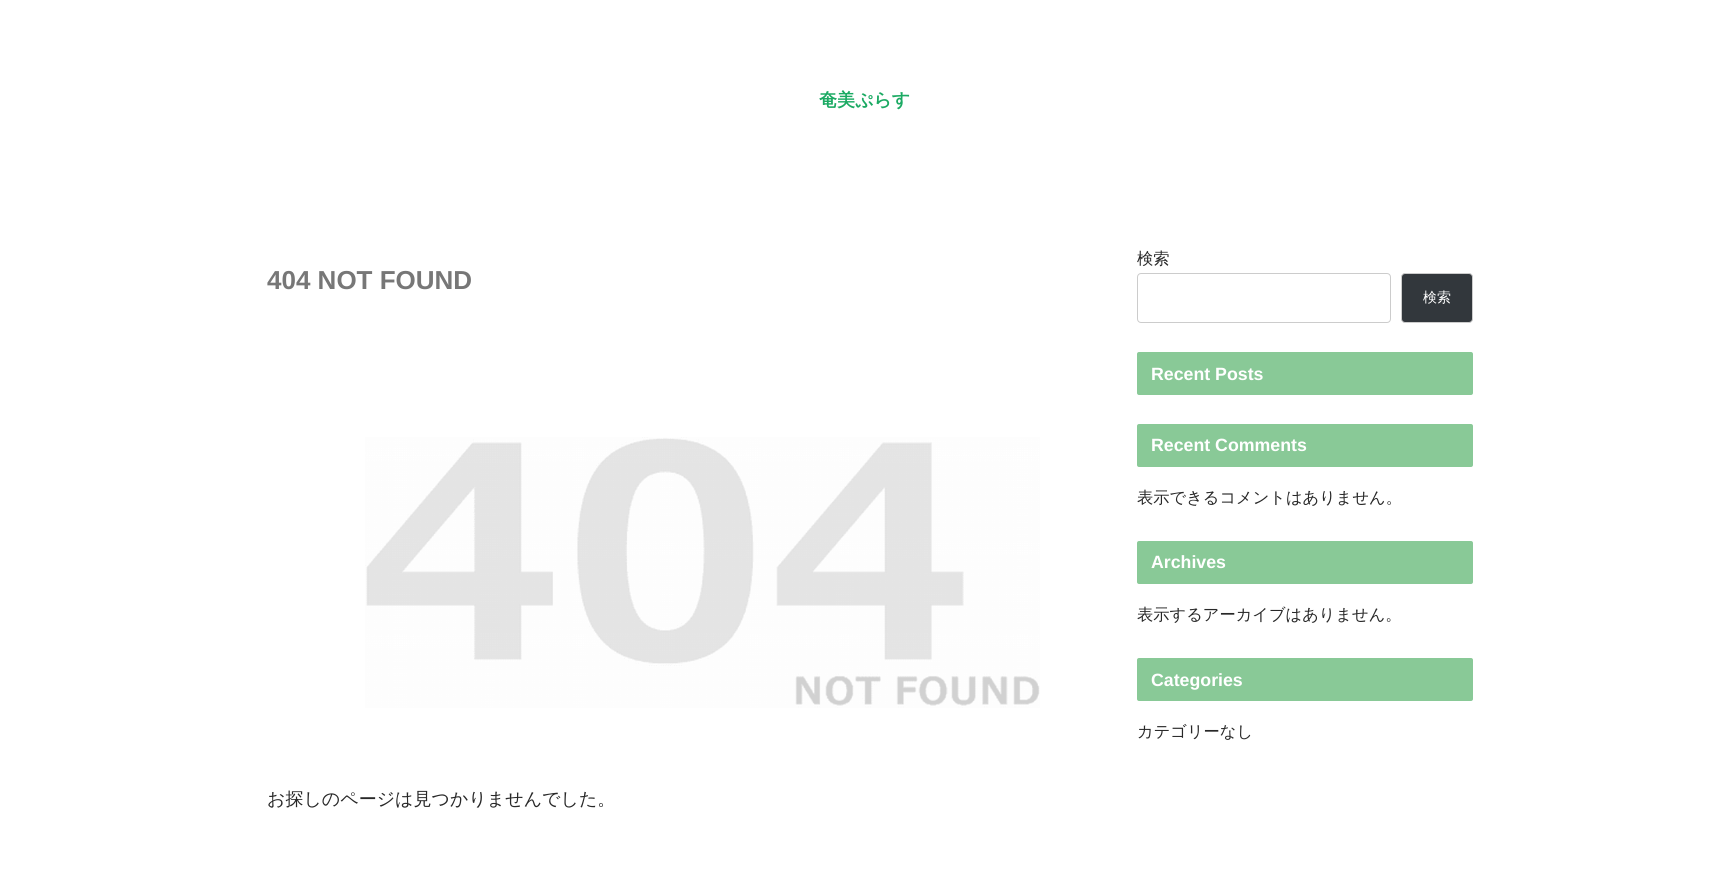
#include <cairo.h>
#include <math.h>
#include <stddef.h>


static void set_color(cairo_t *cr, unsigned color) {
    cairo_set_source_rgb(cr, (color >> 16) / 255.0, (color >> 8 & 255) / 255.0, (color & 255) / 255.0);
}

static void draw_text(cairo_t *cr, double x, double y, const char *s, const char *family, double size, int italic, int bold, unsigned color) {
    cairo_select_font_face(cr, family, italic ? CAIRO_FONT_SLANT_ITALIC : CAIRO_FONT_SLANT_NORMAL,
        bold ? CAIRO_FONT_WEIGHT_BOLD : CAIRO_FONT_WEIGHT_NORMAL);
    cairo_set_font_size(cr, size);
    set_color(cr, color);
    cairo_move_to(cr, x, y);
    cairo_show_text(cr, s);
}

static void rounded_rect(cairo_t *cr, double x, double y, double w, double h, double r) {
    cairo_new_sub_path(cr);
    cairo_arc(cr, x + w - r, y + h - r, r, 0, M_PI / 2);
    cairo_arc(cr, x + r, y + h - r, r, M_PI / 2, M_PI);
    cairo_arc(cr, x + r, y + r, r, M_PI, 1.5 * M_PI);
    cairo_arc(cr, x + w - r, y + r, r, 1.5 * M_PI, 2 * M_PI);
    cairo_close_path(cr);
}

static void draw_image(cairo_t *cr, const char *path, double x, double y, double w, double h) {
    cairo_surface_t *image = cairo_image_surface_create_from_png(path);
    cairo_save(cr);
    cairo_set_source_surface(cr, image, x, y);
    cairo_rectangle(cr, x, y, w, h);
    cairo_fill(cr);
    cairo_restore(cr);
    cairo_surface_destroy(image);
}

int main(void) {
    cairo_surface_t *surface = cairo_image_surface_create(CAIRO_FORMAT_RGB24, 1729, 883);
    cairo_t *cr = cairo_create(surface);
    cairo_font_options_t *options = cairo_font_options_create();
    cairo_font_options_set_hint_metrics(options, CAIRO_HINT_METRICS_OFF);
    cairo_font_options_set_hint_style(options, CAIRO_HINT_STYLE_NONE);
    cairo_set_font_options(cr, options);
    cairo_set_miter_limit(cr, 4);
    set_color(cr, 0xFFFFFF);
    cairo_paint(cr);
    draw_text(cr, 819, 106, "奄美ぷらす", "WenQuanYi Zen Hei", 18, 0, 1, 0x1BAA63);
    draw_text(cr, 267, 289, "404 NOT FOUND", "Liberation Sans", 26, 0, 1, 0x777777);
    draw_image(cr, "assets/img1.png", 365, 437, 675, 271);
    draw_text(cr, 267, 805, "お探しのページは見つかりませんでした。", "WenQuanYi Zen Hei Medium", 18, 0, 0, 0x282828);
    draw_text(cr, 1137, 264, "検索", "WenQuanYi Zen Hei Medium", 16.25, 0, 0, 0x282828);
    rounded_rect(cr, 1137.5, 273.5, 253, 49, 3.5);
    set_color(cr, 0xCCCCCC);
    cairo_set_line_width(cr, 1);
    cairo_stroke(cr);
    set_color(cr, 0x32373C);
    rounded_rect(cr, 1401.5, 273.5, 71, 49, 3.5);
    cairo_fill_preserve(cr);
    set_color(cr, 0xCCCCCC);
    cairo_stroke(cr);
    draw_text(cr, 1423, 302, "検索", "WenQuanYi Zen Hei Medium", 14, 0, 0, 0xFFFFFF);
    set_color(cr, 0x89C997);
    rounded_rect(cr, 1137, 352, 336, 43, 2);
    cairo_fill(cr);
    draw_text(cr, 1151, 380, "Recent Posts", "Liberation Sans", 17.75, 0, 1, 0xFFFFFF);
    set_color(cr, 0x89C997);
    rounded_rect(cr, 1137, 424, 336, 43, 2);
    cairo_fill(cr);
    draw_text(cr, 1151, 451, "Recent Comments", "Liberation Sans", 17.75, 0, 1, 0xFFFFFF);
    draw_text(cr, 1137, 503, "表示できるコメントはありません。", "WenQuanYi Zen Hei Medium", 16.25, 0, 0, 0x282828);
    set_color(cr, 0x89C997);
    rounded_rect(cr, 1137, 541, 336, 43, 2);
    cairo_fill(cr);
    draw_text(cr, 1151, 568, "Archives", "Liberation Sans", 17.75, 0, 1, 0xFFFFFF);
    draw_text(cr, 1137, 620, "表示するアーカイブはありません。", "WenQuanYi Zen Hei Medium", 16.25, 0, 0, 0x282828);
    set_color(cr, 0x89C997);
    rounded_rect(cr, 1137, 658, 336, 43, 2);
    cairo_fill(cr);
    draw_text(cr, 1151, 686, "Categories", "Liberation Sans", 17.75, 0, 1, 0xFFFFFF);
    draw_text(cr, 1137, 737, "カテゴリーなし", "WenQuanYi Zen Hei Medium", 16.25, 0, 0, 0x282828);
    cairo_surface_write_to_png(surface, "output.png");
    cairo_font_options_destroy(options);
    cairo_destroy(cr);
    cairo_surface_destroy(surface);
    return 0;
}
